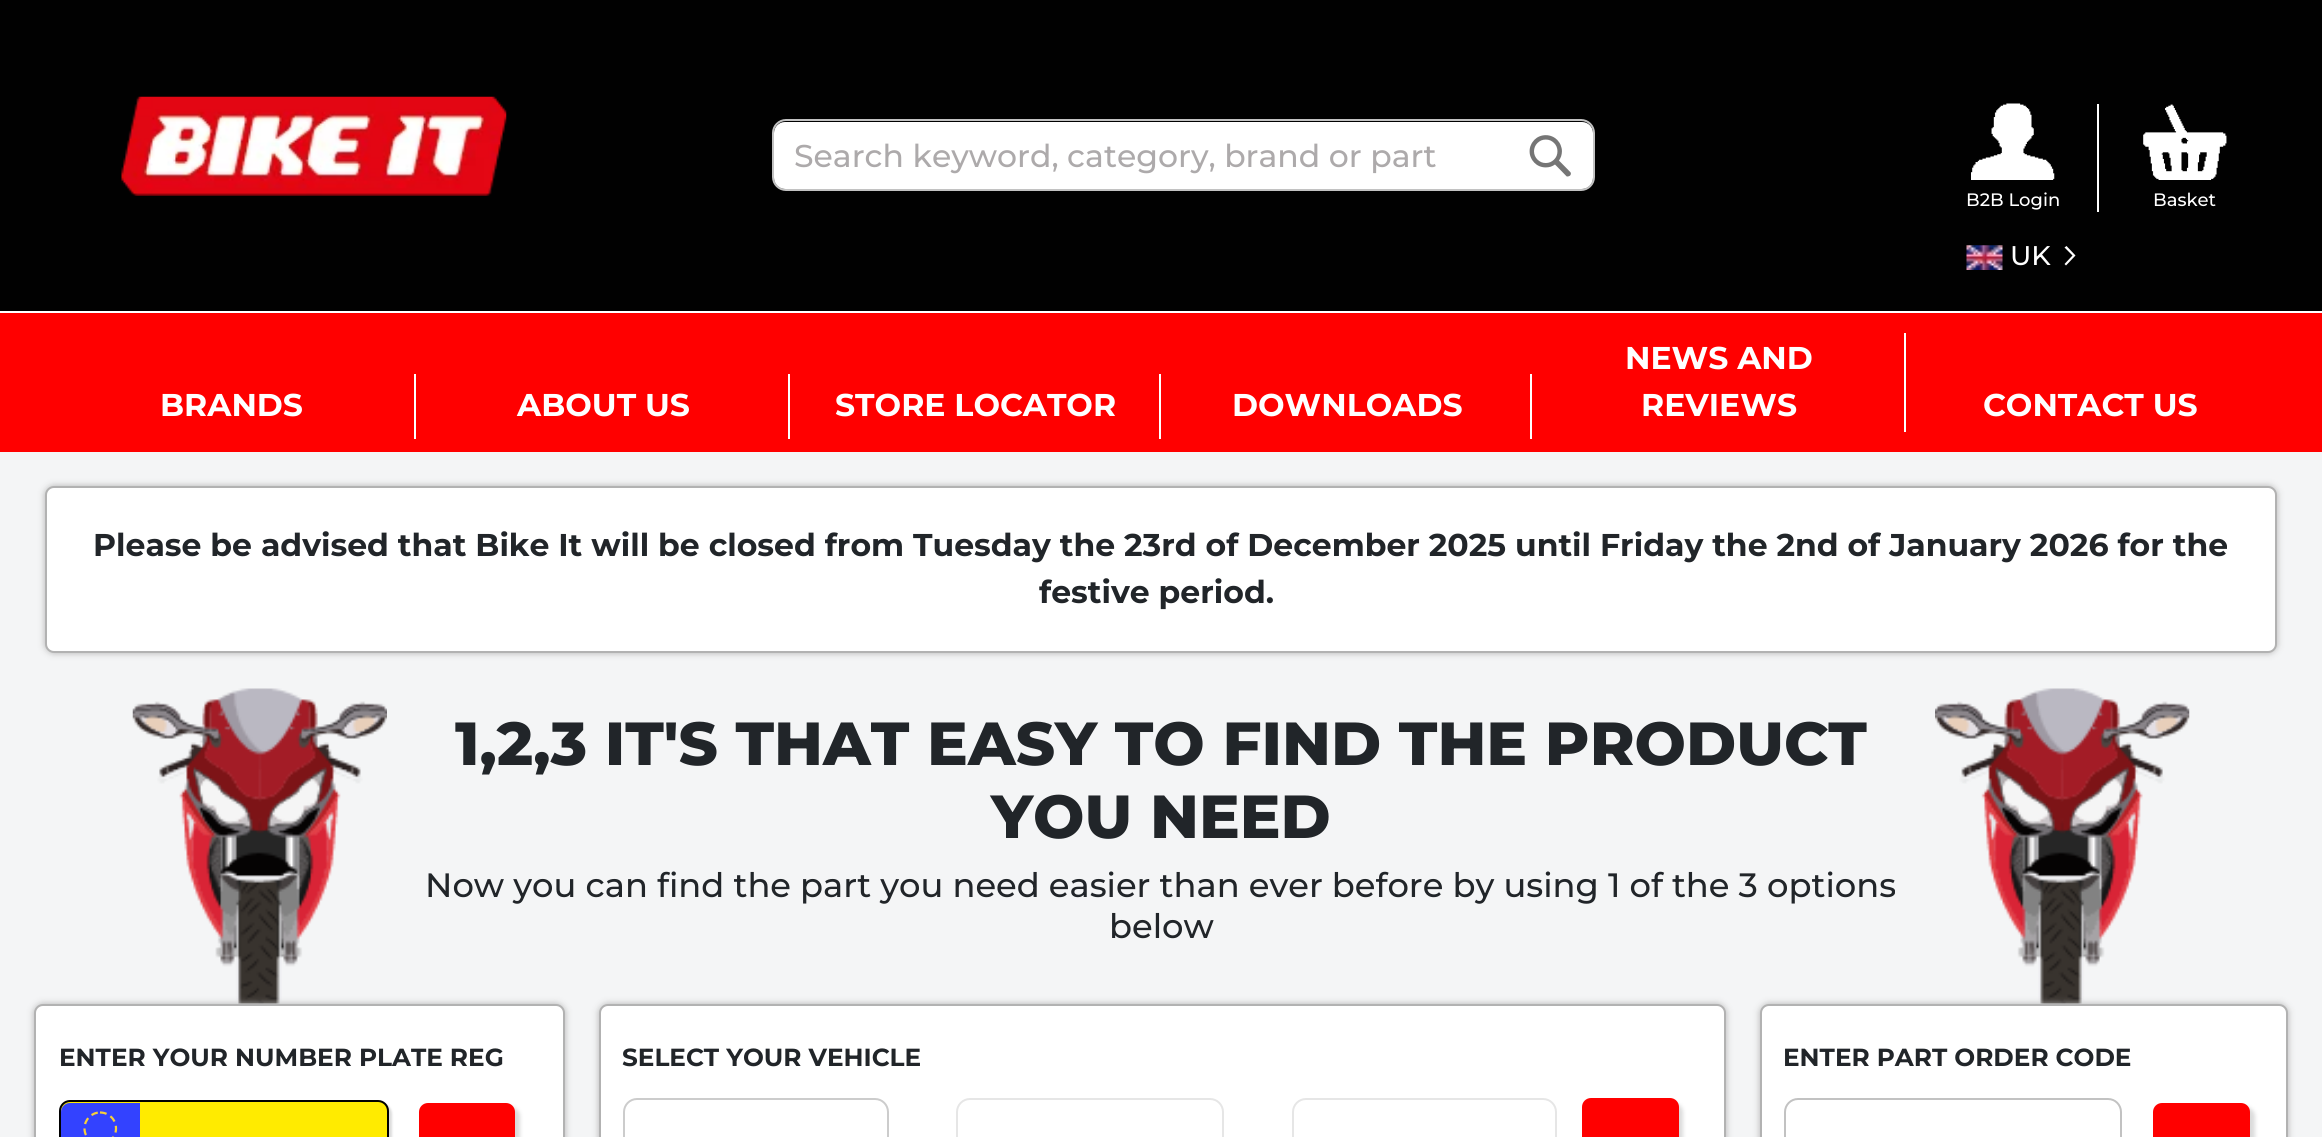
#include <cairo.h>
#include <math.h>
#include <stddef.h>


static void set_color(cairo_t *cr, unsigned color) {
    cairo_set_source_rgb(cr, (color >> 16) / 255.0, (color >> 8 & 255) / 255.0, (color & 255) / 255.0);
}

static void draw_text(cairo_t *cr, double x, double y, const char *s, const char *family, double size, int italic, int bold, unsigned color) {
    cairo_select_font_face(cr, family, italic ? CAIRO_FONT_SLANT_ITALIC : CAIRO_FONT_SLANT_NORMAL,
        bold ? CAIRO_FONT_WEIGHT_BOLD : CAIRO_FONT_WEIGHT_NORMAL);
    cairo_set_font_size(cr, size);
    set_color(cr, color);
    cairo_move_to(cr, x, y);
    cairo_show_text(cr, s);
}

static void fill_rect(cairo_t *cr, double x, double y, double w, double h, unsigned color) {
    set_color(cr, color);
    cairo_rectangle(cr, x, y, w, h);
    cairo_fill(cr);
}

static void rounded_rect(cairo_t *cr, double x, double y, double w, double h, double r) {
    cairo_new_sub_path(cr);
    cairo_arc(cr, x + w - r, y + h - r, r, 0, M_PI / 2);
    cairo_arc(cr, x + r, y + h - r, r, M_PI / 2, M_PI);
    cairo_arc(cr, x + r, y + r, r, M_PI, 1.5 * M_PI);
    cairo_arc(cr, x + w - r, y + r, r, 1.5 * M_PI, 2 * M_PI);
    cairo_close_path(cr);
}

static void draw_shadow(cairo_t *cr, double x, double y, double w, double h, double r, double blur, double alpha) {
    cairo_push_group_with_content(cr, CAIRO_CONTENT_ALPHA);
    cairo_set_operator(cr, CAIRO_OPERATOR_SOURCE);
    for (int i = 15; i >= -15 && fmin(w, h) + blur * i / 3 > 0; i -= 2) {
        double e = blur * i / 6;
        cairo_set_source_rgba(cr, 0, 0, 0, alpha * erfc((i - 1) / 8.5) / 2);
        rounded_rect(cr, x - e, y - e, w + 2 * e, h + 2 * e, fmax(0, fmin(r + e + blur * .6, fmin(w, h) / 2 + e)));
        cairo_fill(cr);
    }
    cairo_pattern_t *soft = cairo_pop_group(cr);
    cairo_mask(cr, soft);
    cairo_pattern_destroy(soft);
}

static void draw_image(cairo_t *cr, const char *path, double x, double y, double w, double h) {
    cairo_surface_t *image = cairo_image_surface_create_from_png(path);
    cairo_save(cr);
    cairo_set_source_surface(cr, image, x, y);
    cairo_rectangle(cr, x, y, w, h);
    cairo_fill(cr);
    cairo_restore(cr);
    cairo_surface_destroy(image);
}

int main(void) {
    cairo_surface_t *surface = cairo_image_surface_create(CAIRO_FORMAT_RGB24, 2322, 1137);
    cairo_t *cr = cairo_create(surface);
    cairo_font_options_t *options = cairo_font_options_create();
    cairo_font_options_set_hint_metrics(options, CAIRO_HINT_METRICS_OFF);
    cairo_font_options_set_hint_style(options, CAIRO_HINT_STYLE_NONE);
    cairo_set_font_options(cr, options);
    cairo_set_miter_limit(cr, 4);
    set_color(cr, 0xF4F5F6);
    cairo_paint(cr);
    fill_rect(cr, 0, 0, 2322, 311, 0x010101);
    draw_image(cr, "assets/img1.png", 121, 96, 386, 100);
    set_color(cr, 0xFFFFFF);
    rounded_rect(cr, 774, 122, 819, 67, 11);
    cairo_fill(cr);
    rounded_rect(cr, 773, 120, 821, 70, 13);
    set_color(cr, 0xC2C2C2);
    cairo_stroke(cr);
    draw_text(cr, 794, 167, "Search keyword, category, brand or part", "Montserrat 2 Thin", 31.5, 0, 0, 0xADAAAB);
    draw_image(cr, "assets/img2.png", 1529, 135, 42, 42);
    draw_image(cr, "assets/img3.png", 1971, 103, 84, 77);
    draw_text(cr, 1966, 206, "B2B Login", "Montserrat 2 Thin", 18, 0, 0, 0xFFFFFF);
    draw_image(cr, "assets/img4.png", 1966, 245, 37, 25);
    draw_text(cr, 2010, 265, "UK", "Montserrat 2 Thin", 27, 0, 0, 0xFFFFFF);
    cairo_new_path(cr);
    cairo_move_to(cr, 2075.5, 255.5);
    cairo_line_to(cr, 2066.5, 246);
    cairo_line_to(cr, 2064.5, 247.5);
    cairo_line_to(cr, 2072.5, 255.5);
    cairo_line_to(cr, 2064.5, 264);
    cairo_line_to(cr, 2066, 265.5);
    cairo_close_path(cr);
    cairo_fill(cr);
    fill_rect(cr, 2097, 104, 2, 108, 0xFFFFFF);
    draw_image(cr, "assets/img5.png", 2143, 104, 84, 76);
    draw_text(cr, 2153, 206, "Basket", "Montserrat 2 Thin", 18, 0, 0, 0xFFFFFF);
    fill_rect(cr, 0, 313, 2322, 139, 0xFF0000);
    fill_rect(cr, 0, 311, 2322, 2, 0xFFFFFF);
    draw_text(cr, 160, 416, "BRANDS", "Montserrat Thin", 31.5, 0, 0, 0xFFFFFF);
    fill_rect(cr, 414, 374, 2, 65, 0xFFFFFF);
    draw_text(cr, 517, 416, "ABOUT US", "Montserrat Thin", 31.5, 0, 0, 0xFFFFFF);
    fill_rect(cr, 788, 374, 2, 65, 0xFFFFFF);
    draw_text(cr, 835, 416, "STORE LOCATOR", "Montserrat Thin", 31.5, 0, 0, 0xFFFFFF);
    fill_rect(cr, 1159, 374, 2, 65, 0xFFFFFF);
    draw_text(cr, 1232, 416, "DOWNLOADS", "Montserrat Thin", 31.5, 0, 0, 0xFFFFFF);
    fill_rect(cr, 1530, 374, 2, 65, 0xFFFFFF);
    draw_text(cr, 1625, 369, "NEWS AND", "Montserrat Thin", 31.5, 0, 0, 0xFFFFFF);
    draw_text(cr, 1641, 416, "REVIEWS", "Montserrat Thin", 31.5, 0, 0, 0xFFFFFF);
    fill_rect(cr, 1904, 333, 2, 99, 0xFFFFFF);
    draw_text(cr, 1983, 416, "CONTACT US", "Montserrat Thin", 31.5, 0, 0, 0xFFFFFF);
    set_color(cr, 0xB2B2B2);
    draw_shadow(cr, 45, 486, 2232, 167, 9, 3.5, 1);
    set_color(cr, 0xFFFFFF);
    rounded_rect(cr, 46, 487, 2230, 165, 8);
    cairo_fill_preserve(cr);
    set_color(cr, 0xB2B2B2);
    cairo_stroke(cr);
    draw_text(cr, 93, 556, "Please be advised that Bike It will be closed from Tuesday the 23rd of December 2025 until Friday the 2nd of January 2026 for the", "Montserrat Thin", 31.5, 0, 0, 0x212529);
    draw_text(cr, 1039, 603, "festive period.", "Montserrat Thin", 31.5, 0, 0, 0x212529);
    draw_image(cr, "assets/img6.png", 132, 688, 255, 316);
    draw_text(cr, 455, 765, "1,2,3 IT'S THAT EASY TO FIND THE PRODUCT", "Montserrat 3 Thin", 60.75, 0, 0, 0x212529);
    draw_text(cr, 991, 838, "YOU NEED", "Montserrat 3 Thin", 60.75, 0, 0, 0x212529);
    draw_text(cr, 425, 897, "Now you can find the part you need easier than ever before by using 1 of the 3 options", "Montserrat 2 Thin", 33.75, 0, 0, 0x212529);
    draw_text(cr, 1109, 938, "below", "Montserrat 2 Thin", 33.75, 0, 0, 0x212529);
    draw_image(cr, "assets/img7.png", 1935, 688, 255, 316);
    set_color(cr, 0xB2B2B2);
    draw_shadow(cr, 34, 1004, 531, 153, 9, 3.5, 1);
    set_color(cr, 0xFFFFFF);
    rounded_rect(cr, 35, 1005, 529, 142, 8);
    cairo_fill_preserve(cr);
    set_color(cr, 0xB2B2B2);
    cairo_stroke(cr);
    draw_text(cr, 59, 1066, "ENTER YOUR NUMBER PLATE REG", "Montserrat Thin", 24.75, 0, 0, 0x212529);
    set_color(cr, 0xDDDDDD);
    draw_shadow(cr, 61, 1103, 331, 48, 11, 1, 1);
    set_color(cr, 0xFFEB00);
    rounded_rect(cr, 60, 1101, 328, 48, 10);
    cairo_fill_preserve(cr);
    set_color(cr, 0x000000);
    cairo_stroke(cr);
    set_color(cr, 0x3342FF);
    cairo_new_path(cr);
    cairo_move_to(cr, 70, 1103);
    cairo_line_to(cr, 140, 1103);
    cairo_line_to(cr, 140, 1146);
    cairo_line_to(cr, 70, 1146);
    cairo_curve_to(cr, 65, 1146, 61, 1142, 61, 1137);
    cairo_line_to(cr, 61, 1112);
    cairo_curve_to(cr, 61, 1107, 65, 1103, 70, 1103);
    cairo_close_path(cr);
    cairo_fill(cr);
    cairo_new_path(cr);
    cairo_move_to(cr, 100, 1112.5);
    cairo_curve_to(cr, 109, 1112.5, 116, 1119.5, 116, 1128.5);
    cairo_curve_to(cr, 116, 1137, 109, 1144, 100, 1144);
    cairo_curve_to(cr, 91.5, 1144, 84.5, 1137, 84.5, 1128.5);
    cairo_curve_to(cr, 84.5, 1119.5, 91.5, 1112.5, 100, 1112.5);
    cairo_close_path(cr);
    set_color(cr, 0xF8D038);
    cairo_set_line_width(cr, 2.2);
    cairo_set_dash(cr, (double[]){6.75, 4.5}, 2, 0);
    cairo_stroke(cr);
    set_color(cr, 0xDBDBDB);
    draw_shadow(cr, 423, 1107, 97, 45, 9, 2, 1);
    set_color(cr, 0xFF0000);
    rounded_rect(cr, 420, 1104, 94, 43, 8);
    cairo_fill_preserve(cr);
    cairo_set_line_width(cr, 2);
    cairo_set_dash(cr, NULL, 0, 0);
    cairo_stroke(cr);
    set_color(cr, 0xB2B2B2);
    draw_shadow(cr, 599, 1004, 1127, 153, 9, 3.5, 1);
    set_color(cr, 0xFFFFFF);
    rounded_rect(cr, 600, 1005, 1125, 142, 8);
    cairo_fill_preserve(cr);
    set_color(cr, 0xB2B2B2);
    cairo_stroke(cr);
    draw_text(cr, 622, 1066, "SELECT YOUR VEHICLE", "Montserrat Thin", 24.75, 0, 0, 0x212529);
    rounded_rect(cr, 624, 1099, 264, 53, 13);
    set_color(cr, 0xCCCCCC);
    cairo_stroke(cr);
    rounded_rect(cr, 957, 1099, 266, 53, 13);
    set_color(cr, 0xE6E6E6);
    cairo_stroke(cr);
    rounded_rect(cr, 1293, 1099, 263, 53, 13);
    cairo_stroke(cr);
    set_color(cr, 0xDBDBDB);
    draw_shadow(cr, 1586, 1103, 97, 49, 9, 2, 1);
    set_color(cr, 0xFF0000);
    rounded_rect(cr, 1583, 1099, 95, 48, 8);
    cairo_fill_preserve(cr);
    cairo_stroke(cr);
    set_color(cr, 0xB2B2B2);
    draw_shadow(cr, 1760, 1004, 528, 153, 9, 3.5, 1);
    set_color(cr, 0xFFFFFF);
    rounded_rect(cr, 1761, 1005, 526, 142, 8);
    cairo_fill_preserve(cr);
    set_color(cr, 0xB2B2B2);
    cairo_stroke(cr);
    draw_text(cr, 1783, 1066, "ENTER PART ORDER CODE", "Montserrat Thin", 24.75, 0, 0, 0x212529);
    rounded_rect(cr, 1785, 1099, 336, 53, 13);
    set_color(cr, 0xC2C2C2);
    cairo_stroke(cr);
    set_color(cr, 0xDBDBDB);
    draw_shadow(cr, 2158, 1107, 97, 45, 9, 2, 1);
    set_color(cr, 0xFF0000);
    rounded_rect(cr, 2154, 1104, 95, 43, 8);
    cairo_fill_preserve(cr);
    cairo_stroke(cr);
    cairo_surface_write_to_png(surface, "output.png");
    cairo_font_options_destroy(options);
    cairo_destroy(cr);
    cairo_surface_destroy(surface);
    return 0;
}
